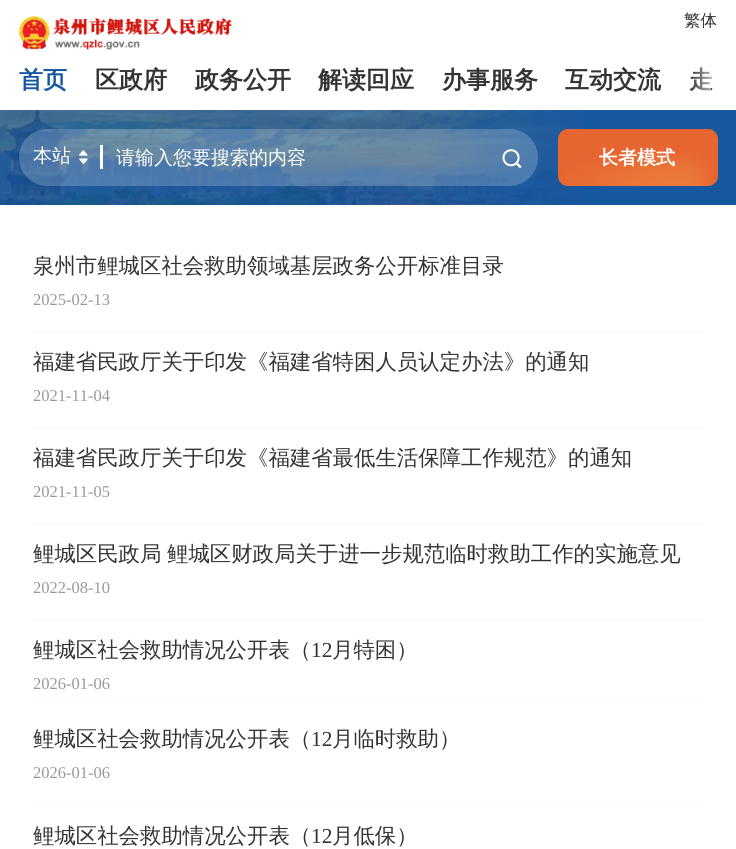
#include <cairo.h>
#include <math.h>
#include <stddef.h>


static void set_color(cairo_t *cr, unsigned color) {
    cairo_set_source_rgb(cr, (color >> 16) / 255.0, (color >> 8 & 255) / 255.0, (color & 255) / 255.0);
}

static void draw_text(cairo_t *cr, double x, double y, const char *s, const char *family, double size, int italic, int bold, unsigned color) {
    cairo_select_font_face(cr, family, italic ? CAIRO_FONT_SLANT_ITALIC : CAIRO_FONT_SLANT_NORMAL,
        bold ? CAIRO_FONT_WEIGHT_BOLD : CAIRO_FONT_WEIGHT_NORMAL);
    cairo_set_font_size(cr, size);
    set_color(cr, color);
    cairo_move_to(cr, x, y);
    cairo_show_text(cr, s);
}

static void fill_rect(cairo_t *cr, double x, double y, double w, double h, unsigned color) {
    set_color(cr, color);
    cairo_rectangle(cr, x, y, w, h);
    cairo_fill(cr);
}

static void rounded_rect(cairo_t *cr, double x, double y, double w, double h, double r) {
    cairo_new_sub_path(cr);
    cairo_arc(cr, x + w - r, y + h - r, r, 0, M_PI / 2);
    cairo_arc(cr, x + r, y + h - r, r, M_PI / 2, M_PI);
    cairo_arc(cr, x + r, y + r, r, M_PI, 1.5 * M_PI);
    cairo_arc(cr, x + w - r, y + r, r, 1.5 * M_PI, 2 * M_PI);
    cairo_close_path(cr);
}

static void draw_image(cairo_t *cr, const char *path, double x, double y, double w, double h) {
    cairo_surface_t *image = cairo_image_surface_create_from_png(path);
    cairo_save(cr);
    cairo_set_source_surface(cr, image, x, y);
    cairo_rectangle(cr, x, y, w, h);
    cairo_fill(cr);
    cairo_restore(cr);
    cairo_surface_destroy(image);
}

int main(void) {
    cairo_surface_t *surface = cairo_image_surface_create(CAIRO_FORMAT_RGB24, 736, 849);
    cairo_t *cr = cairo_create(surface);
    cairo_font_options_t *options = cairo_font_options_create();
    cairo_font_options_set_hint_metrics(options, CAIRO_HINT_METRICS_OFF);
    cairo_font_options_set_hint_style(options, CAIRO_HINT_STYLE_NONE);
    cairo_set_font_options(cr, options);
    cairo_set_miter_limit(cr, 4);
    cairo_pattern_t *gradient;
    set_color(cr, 0xFFFFFF);
    cairo_paint(cr);
    draw_image(cr, "assets/img1.png", 18, 15, 214, 35);
    draw_text(cr, 684, 26, "繁体", "WenQuanYi Zen Hei Medium", 16.5, 0, 0, 0x333333);
    draw_text(cr, 19, 88, "首页", "WenQuanYi Zen Hei", 24, 0, 1, 0x1658A0);
    draw_text(cr, 95, 88, "区政府", "WenQuanYi Zen Hei", 24, 0, 1, 0x333333);
    draw_text(cr, 195, 88, "政务公开", "WenQuanYi Zen Hei", 24, 0, 1, 0x333333);
    draw_text(cr, 318, 88, "解读回应", "WenQuanYi Zen Hei", 24, 0, 1, 0x333333);
    draw_text(cr, 442, 88, "办事服务", "WenQuanYi Zen Hei", 24, 0, 1, 0x333333);
    draw_text(cr, 565, 88, "互动交流", "WenQuanYi Zen Hei", 24, 0, 1, 0x333333);
    draw_text(cr, 689, 88, "走", "WenQuanYi Zen Hei", 24, 0, 1, 0x333333);
    gradient = cairo_pattern_create_linear(689, 80, 725, 80);
    cairo_pattern_add_color_stop_rgba(gradient, 0, 1, 1, 1, 0);
    cairo_pattern_add_color_stop_rgba(gradient, 1, 1, 1, 1, 1);
    cairo_set_source(cr, gradient);
    cairo_pattern_destroy(gradient);
    cairo_rectangle(cr, 690, 68, 21, 23);
    cairo_fill(cr);
    fill_rect(cr, 584, 110, 152, 95, 0x1658A0);
    draw_image(cr, "assets/img2.png", 0, 110, 584, 95);
    cairo_set_source_rgba(cr, 1, 1, 1, 0.2);
    rounded_rect(cr, 19, 129, 519, 57, 28.5);
    cairo_fill(cr);
    draw_text(cr, 33, 162, "本站", "WenQuanYi Zen Hei Medium", 19, 0, 0, 0xFFFFFF);
    draw_image(cr, "assets/img3.png", 79, 150, 9, 14);
    fill_rect(cr, 100, 145, 3, 24, 0xFFFFFF);
    draw_text(cr, 116, 164, "请输入您要搜索的内容", "WenQuanYi Zen Hei Medium", 19, 0, 0, 0xFFFFFF);
    draw_image(cr, "assets/img4.png", 502, 149, 20, 19);
    set_color(cr, 0xE66531);
    rounded_rect(cr, 558, 129, 160, 57, 10);
    cairo_fill(cr);
    draw_image(cr, "assets/img5.png", 564, 151, 147, 35);
    draw_text(cr, 599, 164, "长者模式", "WenQuanYi Zen Hei", 19, 0, 1, 0xFFFFFF);
    fill_rect(cr, 34, 331, 669, 1, 0xF8F8F8);
    draw_text(cr, 33, 273, "泉州市鲤城区社会救助领域基层政务公开标准目录", "WenQuanYi Zen Hei Medium", 21.4, 0, 0, 0x333333);
    draw_text(cr, 33, 305, "2025-02-13", "Liberation Serif", 16.5, 0, 0, 0x999999);
    fill_rect(cr, 34, 428, 669, 1, 0xF8F8F8);
    draw_text(cr, 33, 369, "福建省民政厅关于印发《福建省特困人员认定办法》的通知", "WenQuanYi Zen Hei Medium", 21.4, 0, 0, 0x333333);
    draw_text(cr, 33, 401, "2021-11-04", "Liberation Serif", 16.5, 0, 0, 0x999999);
    fill_rect(cr, 34, 524, 669, 1, 0xF8F8F8);
    draw_text(cr, 33, 465, "福建省民政厅关于印发《福建省最低生活保障工作规范》的通知", "WenQuanYi Zen Hei Medium", 21.4, 0, 0, 0x333333);
    draw_text(cr, 33, 497, "2021-11-05", "Liberation Serif", 16.5, 0, 0, 0x999999);
    fill_rect(cr, 34, 620, 669, 1, 0xF8F8F8);
    draw_text(cr, 33, 561, "鲤城区民政局", "WenQuanYi Zen Hei Medium", 21.4, 0, 0, 0x333333);
    draw_text(cr, 167, 561, "鲤城区财政局关于进一步规范临时救助工作的实施意见", "WenQuanYi Zen Hei Medium", 21.4, 0, 0, 0x333333);
    draw_text(cr, 33, 593, "2022-08-10", "Liberation Serif", 16.5, 0, 0, 0x999999);
    draw_text(cr, 33, 657, "鲤城区社会救助情况公开表（", "WenQuanYi Zen Hei Medium", 21.4, 0, 0, 0x333333);
    draw_text(cr, 311, 657, "12", "Liberation Serif", 21.4, 0, 0, 0x333333);
    draw_text(cr, 332, 657, "月特困）", "WenQuanYi Zen Hei Medium", 21.4, 0, 0, 0x333333);
    draw_text(cr, 33, 689, "2026-01-06", "Liberation Serif", 16.5, 0, 0, 0x999999);
    fill_rect(cr, 34, 701, 669, 1, 0xF8F8F8);
    fill_rect(cr, 34, 805, 669, 1, 0xF8F8F8);
    draw_text(cr, 33, 746, "鲤城区社会救助情况公开表（", "WenQuanYi Zen Hei Medium", 21.4, 0, 0, 0x333333);
    draw_text(cr, 311, 746, "12", "Liberation Serif", 21.4, 0, 0, 0x333333);
    draw_text(cr, 332, 746, "月临时救助）", "WenQuanYi Zen Hei Medium", 21.4, 0, 0, 0x333333);
    draw_text(cr, 33, 778, "2026-01-06", "Liberation Serif", 16.5, 0, 0, 0x999999);
    draw_text(cr, 33, 843, "鲤城区社会救助情况公开表（", "WenQuanYi Zen Hei Medium", 21.4, 0, 0, 0x333333);
    draw_text(cr, 311, 843, "12", "Liberation Serif", 21.4, 0, 0, 0x333333);
    draw_text(cr, 332, 843, "月低保）", "WenQuanYi Zen Hei Medium", 21.4, 0, 0, 0x333333);
    cairo_surface_write_to_png(surface, "output.png");
    cairo_font_options_destroy(options);
    cairo_destroy(cr);
    cairo_surface_destroy(surface);
    return 0;
}
